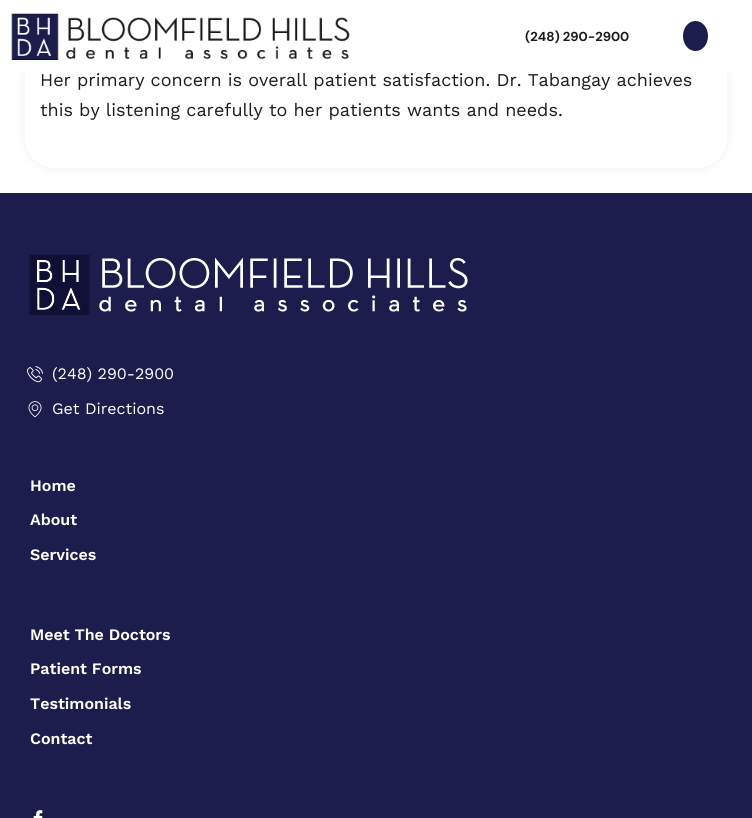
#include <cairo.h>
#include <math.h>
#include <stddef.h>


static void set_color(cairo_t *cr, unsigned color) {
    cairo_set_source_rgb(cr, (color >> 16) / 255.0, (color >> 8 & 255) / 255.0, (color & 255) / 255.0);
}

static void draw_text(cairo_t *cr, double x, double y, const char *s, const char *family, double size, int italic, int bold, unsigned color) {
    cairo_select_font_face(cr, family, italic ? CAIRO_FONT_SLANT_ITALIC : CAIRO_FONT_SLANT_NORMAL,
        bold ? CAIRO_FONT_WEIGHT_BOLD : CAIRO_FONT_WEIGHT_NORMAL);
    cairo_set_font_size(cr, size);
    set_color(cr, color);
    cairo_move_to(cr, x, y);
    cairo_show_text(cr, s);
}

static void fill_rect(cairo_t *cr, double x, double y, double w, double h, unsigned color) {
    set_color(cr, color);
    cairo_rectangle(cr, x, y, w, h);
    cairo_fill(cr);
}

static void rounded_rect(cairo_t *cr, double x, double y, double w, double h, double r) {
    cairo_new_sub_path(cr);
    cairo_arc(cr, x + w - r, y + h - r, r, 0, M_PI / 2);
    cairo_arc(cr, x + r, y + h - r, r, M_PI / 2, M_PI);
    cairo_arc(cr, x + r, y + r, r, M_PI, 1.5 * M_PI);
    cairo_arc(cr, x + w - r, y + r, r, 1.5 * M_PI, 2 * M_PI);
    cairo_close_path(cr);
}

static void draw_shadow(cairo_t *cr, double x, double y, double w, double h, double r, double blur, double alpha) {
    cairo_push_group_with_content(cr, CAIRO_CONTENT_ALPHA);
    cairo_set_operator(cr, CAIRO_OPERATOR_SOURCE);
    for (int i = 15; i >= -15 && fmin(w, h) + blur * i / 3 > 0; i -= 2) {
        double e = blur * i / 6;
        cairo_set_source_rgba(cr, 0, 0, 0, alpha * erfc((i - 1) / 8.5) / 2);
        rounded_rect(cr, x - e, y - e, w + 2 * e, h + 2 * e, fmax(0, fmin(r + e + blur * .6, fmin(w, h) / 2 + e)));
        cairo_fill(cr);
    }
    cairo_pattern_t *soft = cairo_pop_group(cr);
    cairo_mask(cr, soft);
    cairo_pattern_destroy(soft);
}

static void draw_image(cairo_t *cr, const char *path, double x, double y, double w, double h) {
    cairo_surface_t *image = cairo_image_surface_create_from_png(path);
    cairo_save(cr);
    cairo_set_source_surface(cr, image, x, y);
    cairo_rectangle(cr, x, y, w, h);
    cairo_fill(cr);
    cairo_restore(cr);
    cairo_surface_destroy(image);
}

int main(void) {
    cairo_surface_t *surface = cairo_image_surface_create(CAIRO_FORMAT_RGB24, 752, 818);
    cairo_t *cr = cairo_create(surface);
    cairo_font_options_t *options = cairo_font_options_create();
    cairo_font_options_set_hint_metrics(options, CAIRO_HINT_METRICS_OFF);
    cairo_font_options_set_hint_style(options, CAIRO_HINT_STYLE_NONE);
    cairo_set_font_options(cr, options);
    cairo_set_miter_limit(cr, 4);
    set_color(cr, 0xFFFFFF);
    cairo_paint(cr);
    set_color(cr, 0x000000);
    draw_shadow(cr, 25, -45, 702, 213, 30, 5, 0.07);
    set_color(cr, 0xFFFFFF);
    rounded_rect(cr, 25, -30, 702, 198, 30);
    cairo_fill(cr);
    draw_text(cr, 40, 86, "Her primary concern is overall patient satisfaction. Dr. Tabangay achieves", "Work Sans", 18, 0, 0, 0x1B1B1B);
    fill_rect(cr, 20, 0, 712, 73, 0xFFFFFF);
    draw_image(cr, "assets/img1.png", 11, 13, 339, 47);
    draw_text(cr, 525, 41, "(248) 290-2900", "DM Sans", 13, 0, 1, 0x1B1B1B);
    set_color(cr, 0x1D1D4D);
    cairo_new_path(cr);
    cairo_move_to(cr, 695.5, 21);
    cairo_curve_to(cr, 702.5, 21, 708, 27.5, 708, 36);
    cairo_curve_to(cr, 708, 44.5, 702.5, 51, 695.5, 51);
    cairo_curve_to(cr, 688.5, 51, 683, 44.5, 683, 36);
    cairo_curve_to(cr, 683, 27.5, 688.5, 21, 695.5, 21);
    cairo_close_path(cr);
    cairo_fill(cr);
    draw_text(cr, 40, 116, "this by listening carefully to her patients wants and needs.", "Work Sans", 18, 0, 0, 0x1B1B1B);
    fill_rect(cr, 0, 193, 752, 625, 0x1D1D4D);
    draw_image(cr, "assets/img2.png", 29, 254, 439, 61);
    draw_image(cr, "assets/img3.png", 27, 366, 16, 17);
    draw_text(cr, 52, 379, "(248) 290-2900", "Work Sans", 16, 0, 0, 0xFFFFFF);
    draw_image(cr, "assets/img4.png", 28, 401, 14, 17);
    draw_text(cr, 52, 414, "Get Directions", "Work Sans", 16, 0, 0, 0xFFFFFF);
    draw_text(cr, 30, 491, "Home", "Work Sans SemiBold", 16, 0, 0, 0xFFFFFF);
    draw_text(cr, 30, 525, "About", "Work Sans SemiBold", 16, 0, 0, 0xFFFFFF);
    draw_text(cr, 30, 560, "Services", "Work Sans SemiBold", 16, 0, 0, 0xFFFFFF);
    draw_text(cr, 30, 640, "Meet The Doctors", "Work Sans SemiBold", 16, 0, 0, 0xFFFFFF);
    draw_text(cr, 30, 674, "Patient Forms", "Work Sans SemiBold", 16, 0, 0, 0xFFFFFF);
    draw_text(cr, 30, 709, "Testimonials", "Work Sans SemiBold", 16, 0, 0, 0xFFFFFF);
    draw_text(cr, 30, 744, "Contact", "Work Sans SemiBold", 16, 0, 0, 0xFFFFFF);
    draw_image(cr, "assets/img5.png", 33, 810, 10, 8);
    cairo_surface_write_to_png(surface, "output.png");
    cairo_font_options_destroy(options);
    cairo_destroy(cr);
    cairo_surface_destroy(surface);
    return 0;
}
